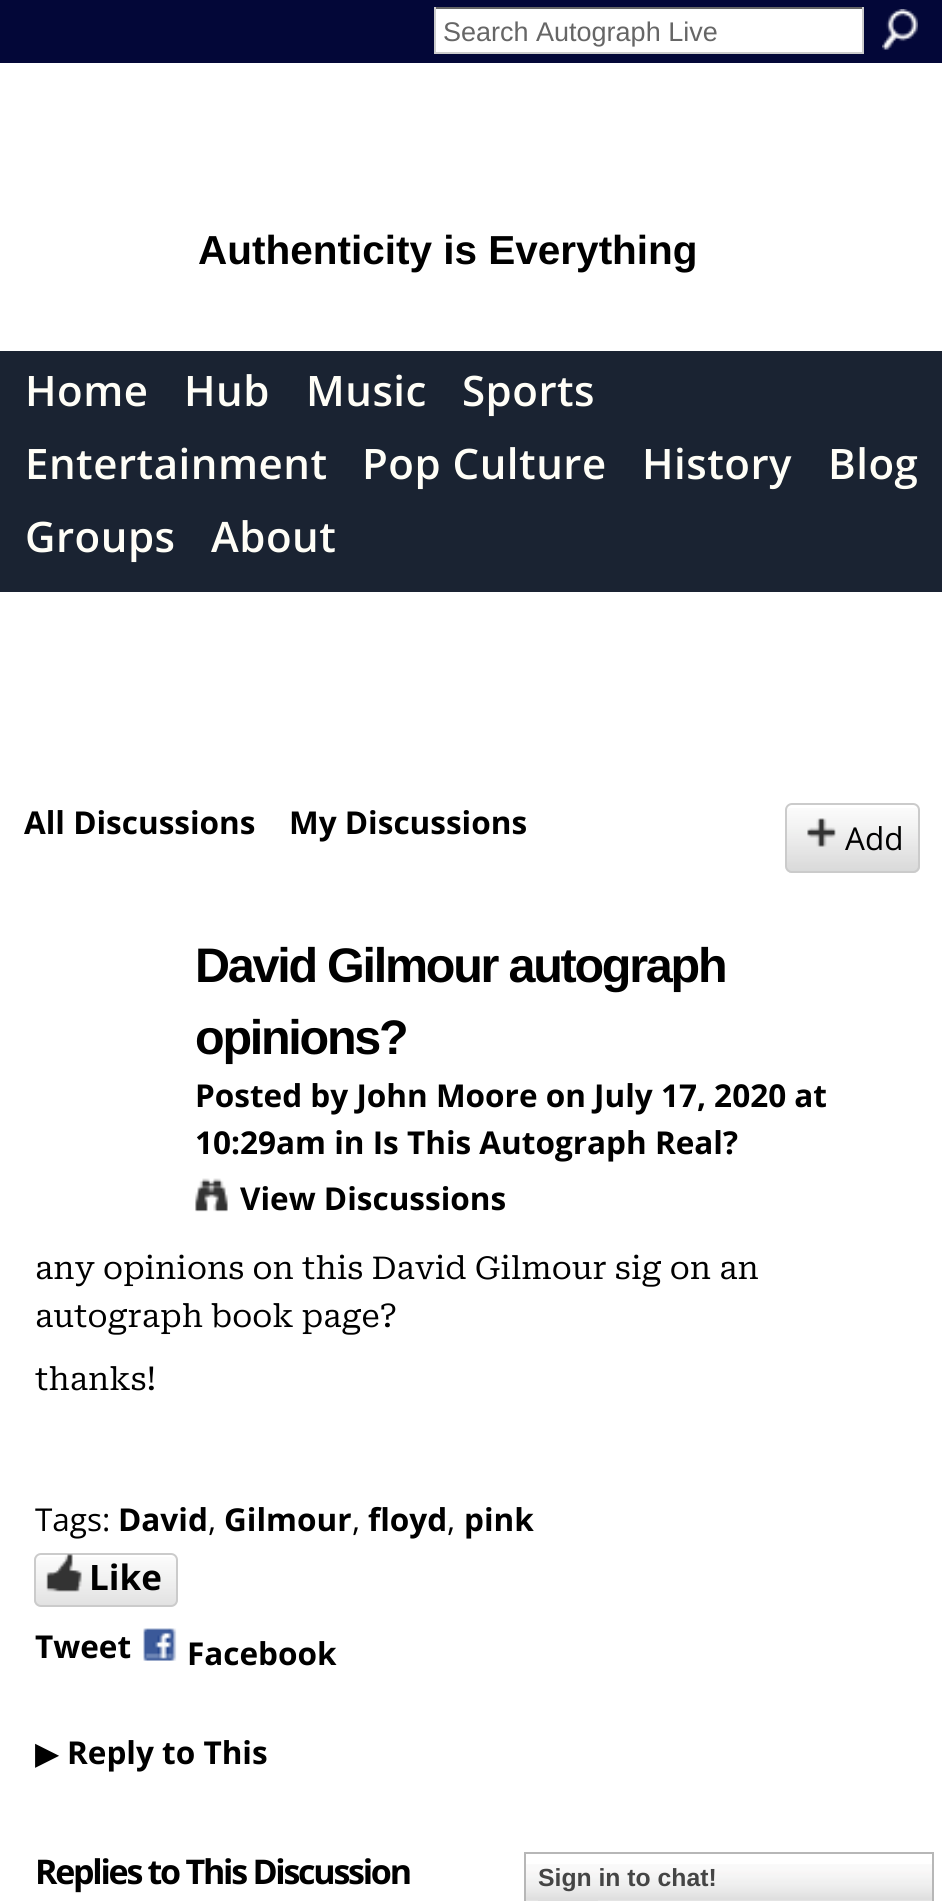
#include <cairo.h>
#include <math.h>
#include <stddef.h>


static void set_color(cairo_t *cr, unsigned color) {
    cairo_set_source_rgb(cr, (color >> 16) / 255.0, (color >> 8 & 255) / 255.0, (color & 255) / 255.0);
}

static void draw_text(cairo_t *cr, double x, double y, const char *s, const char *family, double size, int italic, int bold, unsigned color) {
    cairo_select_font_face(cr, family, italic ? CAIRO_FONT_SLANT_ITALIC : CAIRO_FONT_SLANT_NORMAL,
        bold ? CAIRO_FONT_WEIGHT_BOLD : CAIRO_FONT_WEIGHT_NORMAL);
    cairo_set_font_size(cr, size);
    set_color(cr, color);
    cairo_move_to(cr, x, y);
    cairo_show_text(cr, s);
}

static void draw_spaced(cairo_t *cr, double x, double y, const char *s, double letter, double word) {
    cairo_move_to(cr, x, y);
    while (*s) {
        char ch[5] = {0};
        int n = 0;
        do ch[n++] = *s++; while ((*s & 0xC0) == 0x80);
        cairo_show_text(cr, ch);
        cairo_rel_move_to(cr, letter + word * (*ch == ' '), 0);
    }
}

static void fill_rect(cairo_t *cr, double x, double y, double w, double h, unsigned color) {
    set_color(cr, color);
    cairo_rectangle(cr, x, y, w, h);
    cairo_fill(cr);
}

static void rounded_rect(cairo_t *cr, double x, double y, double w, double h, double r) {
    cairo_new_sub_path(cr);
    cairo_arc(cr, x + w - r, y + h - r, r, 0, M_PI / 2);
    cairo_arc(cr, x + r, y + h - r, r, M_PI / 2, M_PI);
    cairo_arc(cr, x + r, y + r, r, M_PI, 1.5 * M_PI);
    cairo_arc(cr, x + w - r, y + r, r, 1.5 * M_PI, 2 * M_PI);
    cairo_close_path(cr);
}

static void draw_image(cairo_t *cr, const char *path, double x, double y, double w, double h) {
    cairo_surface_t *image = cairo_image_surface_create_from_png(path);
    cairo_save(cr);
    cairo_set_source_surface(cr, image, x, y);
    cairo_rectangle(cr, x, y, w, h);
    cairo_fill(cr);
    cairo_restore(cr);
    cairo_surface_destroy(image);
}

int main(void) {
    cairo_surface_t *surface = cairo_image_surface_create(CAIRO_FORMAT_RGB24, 942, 1901);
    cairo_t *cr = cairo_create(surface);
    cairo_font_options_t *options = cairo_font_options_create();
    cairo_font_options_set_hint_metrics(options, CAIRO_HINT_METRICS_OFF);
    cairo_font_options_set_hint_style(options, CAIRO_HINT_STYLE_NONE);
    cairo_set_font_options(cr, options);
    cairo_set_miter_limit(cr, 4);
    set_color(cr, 0xFFFFFF);
    cairo_paint(cr);
    fill_rect(cr, 0, 0, 942, 63, 0x030738);
    fill_rect(cr, 436, 9, 426, 43, 0xFFFFFF);
    fill_rect(cr, 434, 7, 430, 2, 0x666666);
    fill_rect(cr, 862, 7, 2, 47, 0xCCCCCC);
    fill_rect(cr, 434, 52, 430, 2, 0xCCCCCC);
    fill_rect(cr, 434, 7, 2, 47, 0xCCCCCC);
    draw_text(cr, 443, 41, "Search Autograph Live", "Liberation Sans", 27, 0, 0, 0x666666);
    draw_image(cr, "assets/img1.png", 882, 9, 36, 41);
    draw_text(cr, 198, 264, "Authenticity is Everything", "Liberation Sans", 40.5, 0, 1, 0x000000);
    fill_rect(cr, 0, 351, 942, 241, 0x1A2332);
    cairo_select_font_face(cr, "Open Sans SemiBold", CAIRO_FONT_SLANT_NORMAL, CAIRO_FONT_WEIGHT_NORMAL);
    cairo_set_font_size(cr, 42);
    set_color(cr, 0xFFFEF7);
    draw_spaced(cr, 25, 406, "Home", 0.5, 0);
    draw_spaced(cr, 184, 406, "Hub", 0.5, 0);
    draw_spaced(cr, 306, 406, "Music", 0.5, 0);
    draw_spaced(cr, 462, 406, "Sports", 0.5, 0);
    draw_spaced(cr, 25, 479, "Entertainment", 0.5, 0);
    draw_spaced(cr, 362, 479, "Pop Culture", 0.5, 0);
    draw_spaced(cr, 642, 479, "History", 0.5, 0);
    draw_spaced(cr, 828, 479, "Blog", 0.5, 0);
    draw_spaced(cr, 25, 552, "Groups", 0.5, 0);
    draw_spaced(cr, 211, 552, "About", 0.5, 0);
    draw_text(cr, 24, 834, "All Discussions", "Open Sans", 31.5, 0, 1, 0x000000);
    draw_text(cr, 289, 834, "My Discussions", "Open Sans", 31.5, 0, 1, 0x000000);
    draw_image(cr, "assets/img2.png", 785, 808, 135, 65);
    rounded_rect(cr, 786, 804, 133, 68, 6);
    set_color(cr, 0xCBCBCB);
    cairo_stroke(cr);
    draw_image(cr, "assets/img3.png", 807, 818, 29, 29);
    draw_text(cr, 845, 850, "Add", "Open Sans", 31.5, 0, 0, 0x000000);
    cairo_select_font_face(cr, "Liberation Sans", CAIRO_FONT_SLANT_NORMAL, CAIRO_FONT_WEIGHT_BOLD);
    cairo_set_font_size(cr, 48.5);
    draw_spaced(cr, 195, 982, "David Gilmour autograph", -2.25, 0);
    draw_spaced(cr, 195, 1054, "opinions?", -2.25, 0);
    draw_text(cr, 195, 1107, "Posted by John Moore on July 17, 2020 at", "Open Sans", 31.5, 0, 1, 0x000000);
    draw_text(cr, 195, 1154, "10:29am in Is This Autograph Real?", "Open Sans", 31.5, 0, 1, 0x000000);
    draw_image(cr, "assets/img4.png", 195, 1178, 33, 34);
    draw_text(cr, 240, 1210, "View Discussions", "Open Sans", 31.5, 0, 1, 0x000000);
    draw_text(cr, 35, 1279, "any opinions on this David Gilmour sig on an", "Roboto Serif", 31.5, 0, 0, 0x000000);
    draw_text(cr, 35, 1327, "autograph book page?", "Roboto Serif", 31.5, 0, 0, 0x000000);
    draw_text(cr, 35, 1390, "thanks!", "Roboto Serif", 31.5, 0, 0, 0x000000);
    draw_text(cr, 35, 1531, "Tags:", "Open Sans", 31.5, 0, 0, 0x000000);
    draw_text(cr, 118, 1531, "David", "Open Sans", 31.5, 0, 1, 0x000000);
    draw_text(cr, 208, 1531, ",", "Open Sans", 31.5, 0, 0, 0x000000);
    draw_text(cr, 224, 1531, "Gilmour", "Open Sans", 31.5, 0, 1, 0x000000);
    draw_text(cr, 352, 1531, ",", "Open Sans", 31.5, 0, 0, 0x000000);
    draw_text(cr, 368, 1531, "floyd", "Open Sans", 31.5, 0, 1, 0x000000);
    draw_text(cr, 447, 1531, ",", "Open Sans", 31.5, 0, 0, 0x000000);
    draw_text(cr, 464, 1531, "pink", "Open Sans", 31.5, 0, 1, 0x000000);
    draw_image(cr, "assets/img5.png", 34, 1557, 144, 50);
    rounded_rect(cr, 35, 1554, 142, 52, 6);
    set_color(cr, 0xCBCBCB);
    cairo_stroke(cr);
    draw_image(cr, "assets/img6.png", 46, 1554, 36, 38);
    draw_text(cr, 89, 1590, "Like", "Open Sans", 35, 0, 1, 0x000000);
    draw_text(cr, 35, 1658, "Tweet", "Open Sans", 31.5, 0, 1, 0x000000);
    draw_image(cr, "assets/img7.png", 143, 1628, 34, 33);
    draw_text(cr, 187, 1665, "Facebook", "Open Sans", 31.5, 0, 1, 0x000000);
    draw_text(cr, 35, 1764, "▶", "DejaVu Sans", 31.5, 0, 0, 0x000000);
    draw_text(cr, 67, 1764, "Reply to This", "Open Sans", 31.5, 0, 1, 0x000000);
    cairo_set_font_size(cr, 34);
    draw_spaced(cr, 35, 1884, "Replies to This Discussion", -2.25, 0);
    draw_image(cr, "assets/img8.png", 526, 1864, 406, 37);
    cairo_rectangle(cr, 525, 1853, 408, 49);
    set_color(cr, 0xB7B7B7);
    cairo_stroke(cr);
    fill_rect(cr, 538, 1900, 60, 1, 0xDEDEDE);
    draw_text(cr, 538, 1886, "Sign in to chat!", "Liberation Sans", 24.75, 0, 1, 0x454545);
    cairo_surface_write_to_png(surface, "output.png");
    cairo_font_options_destroy(options);
    cairo_destroy(cr);
    cairo_surface_destroy(surface);
    return 0;
}
